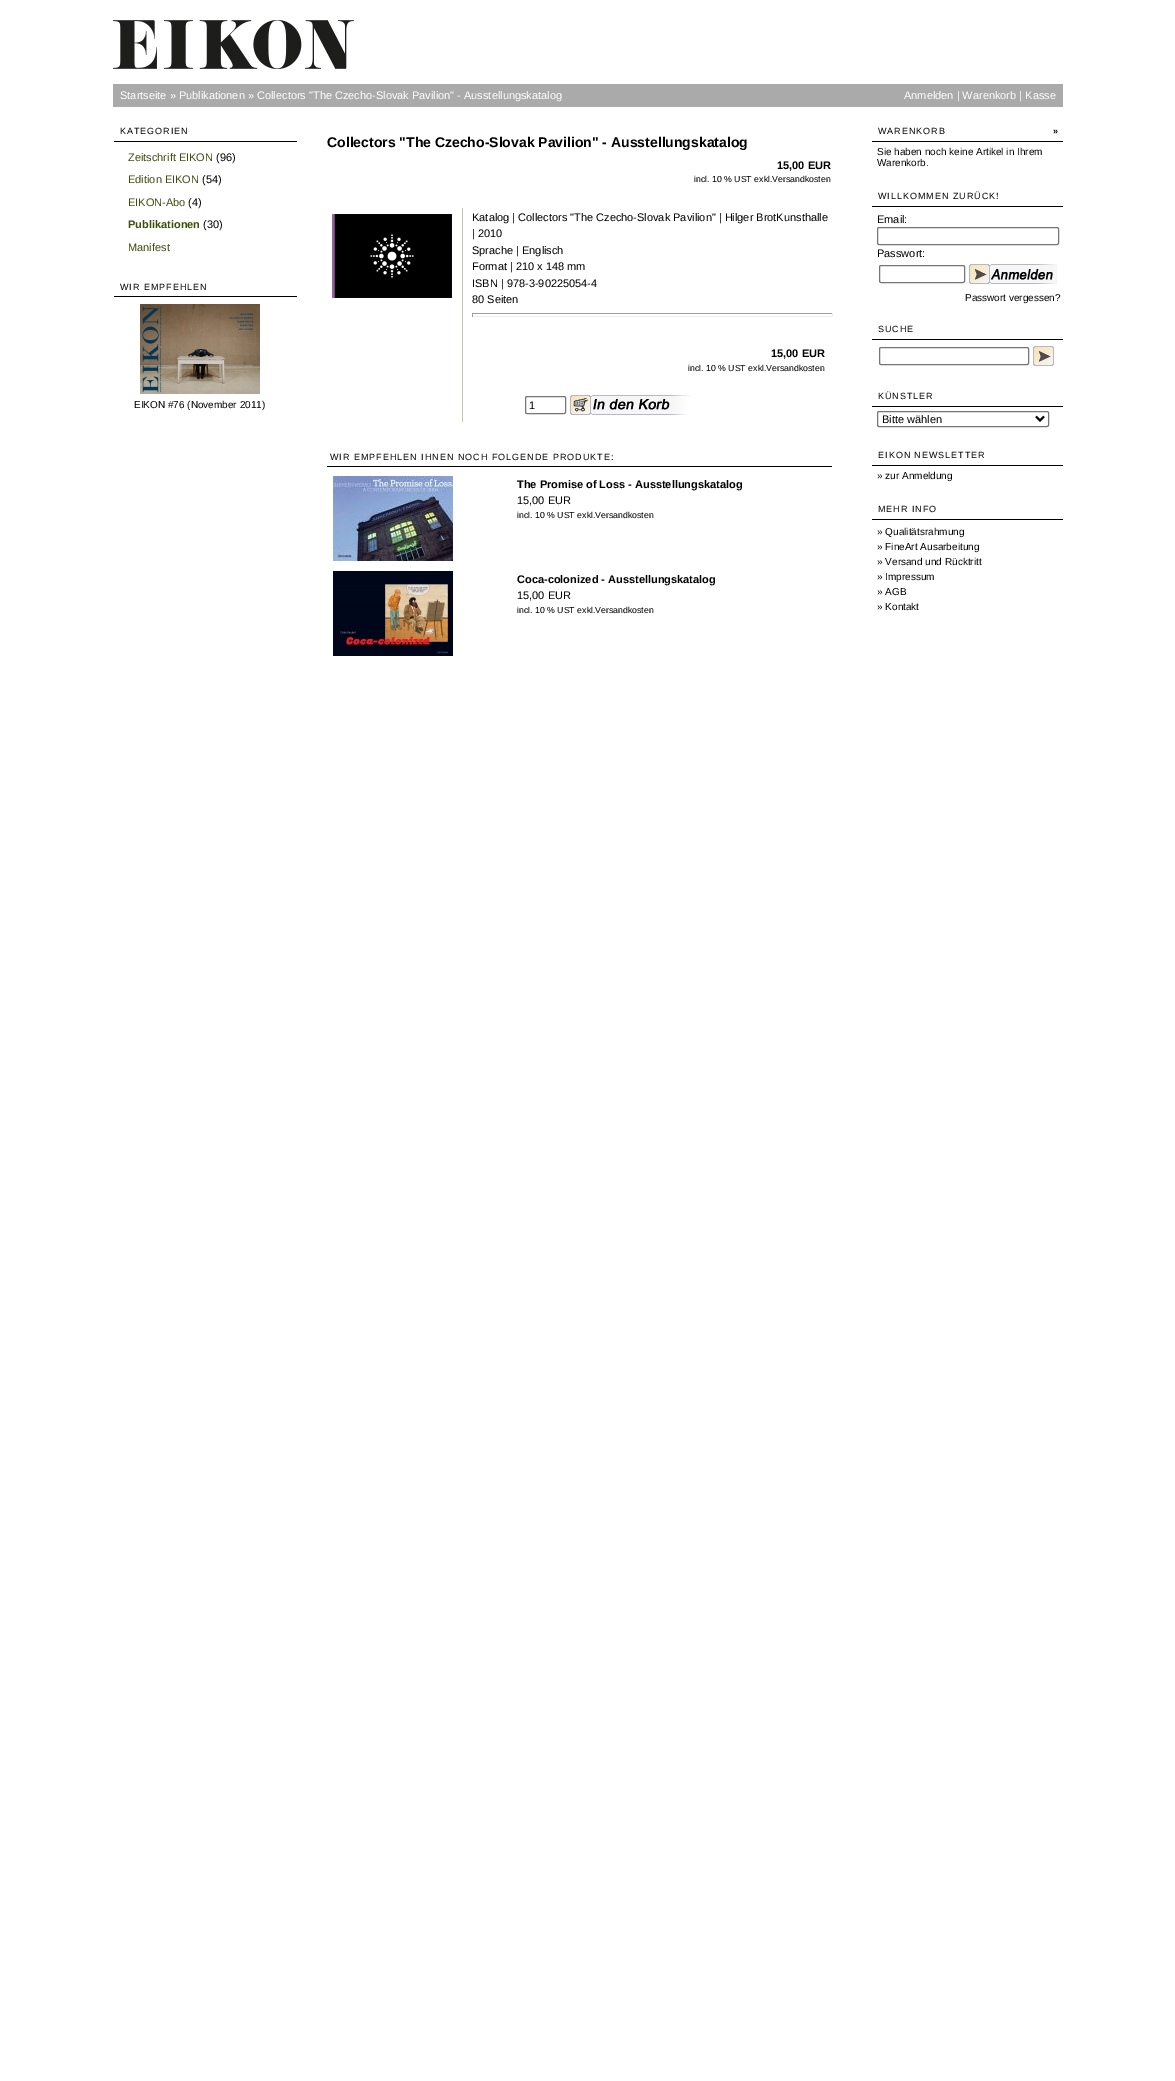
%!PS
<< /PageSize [1175 2081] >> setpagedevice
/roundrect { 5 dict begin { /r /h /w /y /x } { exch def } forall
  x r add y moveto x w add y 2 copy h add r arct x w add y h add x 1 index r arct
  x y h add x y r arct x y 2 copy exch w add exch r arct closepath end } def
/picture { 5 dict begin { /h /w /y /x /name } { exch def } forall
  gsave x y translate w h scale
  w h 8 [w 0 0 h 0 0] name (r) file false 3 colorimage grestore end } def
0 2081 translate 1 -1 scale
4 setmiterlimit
1 setgray
0 0 1175 2081 rectfill
(img1.rgb) 113 20 241 49 picture
0.667 setgray
113 84 950 23 rectfill
/LiberationSans-Regular [11 0 0 -11 0 0] selectfont
1 setgray
120 99 moveto (Startseite » Publikationen » Collectors "The Czecho-Slovak Pavilion" - Ausstellungskatalog) show
904 99 moveto (Anmelden | Warenkorb | Kasse) show
0 setgray
113 141 184 1 rectfill
1 setgray
113 141 1 1 rectfill
/LiberationSans-Regular [9 0 0 -9 0 0] selectfont
0 setgray
120 134 moveto 1 0 (KATEGORIEN) ashow
/LiberationSans-Regular [11 0 0 -11 0 0] selectfont
0.235 0.306 0.051 setrgbcolor
128 161 moveto (Zeitschrift EIKON) show
0 setgray
216 161 moveto (\(96\)) show
0.235 0.306 0.051 setrgbcolor
128 183 moveto (Edition EIKON) show
0 setgray
202 183 moveto (\(54\)) show
0.235 0.306 0.051 setrgbcolor
128 206 moveto (EIKON-Abo) show
0 setgray
188 206 moveto (\(4\)) show
/LiberationSans-Bold [11 0 0 -11 0 0] selectfont
0.235 0.306 0.051 setrgbcolor
128 228 moveto (Publikationen) show
/LiberationSans-Regular [11 0 0 -11 0 0] selectfont
0 setgray
203 228 moveto (\(30\)) show
0.235 0.306 0.051 setrgbcolor
128 251 moveto (Manifest) show
0 setgray
113 296 184 1 rectfill
1 setgray
113 296 1 1 rectfill
/LiberationSans-Regular [9 0 0 -9 0 0] selectfont
0 setgray
120 290 moveto 1 0 (WIR EMPFEHLEN) ashow
(img2.rgb) 140 304 120 90 picture
/LiberationSans-Regular [10 0 0 -10 0 0] selectfont
134 408 moveto (EIKON #76 \(November 2011\)) show
/LiberationSans-Bold [14 0 0 -14 0 0] selectfont
327 147 moveto (Collectors "The Czecho-Slovak Pavilion" - Ausstellungskatalog) show
/LiberationSans-Bold [11 0 0 -11 0 0] selectfont
777 169 moveto (15,00 EUR) show
/LiberationSans-Regular [8.75 0 0 -8.75 0 0] selectfont
694 182 moveto (incl. 10 % UST exkl.Versandkosten) show
0.765 0.796 0.604 setrgbcolor
462 208 1 214 rectfill
(img3.rgb) 332 214 120 84 picture
/LiberationSans-Regular [11 0 0 -11 0 0] selectfont
0 setgray
472 221 moveto (Katalog | Collectors "The Czecho-Slovak Pavilion" | Hilger BrotKunsthalle) show
472 237 moveto (| 2010) show
472 254 moveto (Sprache | Englisch) show
472 270 moveto (Format | 210 x 148 mm) show
472 287 moveto (ISBN | 978-3-90225054-4) show
472 303 moveto (80 Seiten) show
0.624 setgray
472 313 361 1 rectfill
0.933 setgray
832 313 1 4 rectfill
472 316 361 1 rectfill
0.624 setgray
472 313 1 4 rectfill
/LiberationSans-Bold [11 0 0 -11 0 0] selectfont
0 setgray
771 357 moveto (15,00 EUR) show
/LiberationSans-Regular [8.75 0 0 -8.75 0 0] selectfont
688 371 moveto (incl. 10 % UST exkl.Versandkosten) show
0.463 setgray
525.5 396.5 40 17 1.5 roundrect stroke
/LiberationSans-Regular [11 0 0 -11 0 0] selectfont
0 setgray
529 409 moveto (1) show
(img4.rgb) 570 395 120 20 picture
326 466 506 1 rectfill
1 setgray
326 466 1 1 rectfill
/LiberationSans-Regular [9 0 0 -9 0 0] selectfont
0 setgray
330 460 moveto 1 0 (WIR EMPFEHLEN IHNEN NOCH FOLGENDE PRODUKTE:) ashow
(img5.rgb) 333 476 120 85 picture
/LiberationSans-Bold [11 0 0 -11 0 0] selectfont
517 488 moveto (The Promise of Loss - Ausstellungskatalog) show
/LiberationSans-Regular [11 0 0 -11 0 0] selectfont
517 504 moveto (15,00 EUR) show
/LiberationSans-Regular [8.75 0 0 -8.75 0 0] selectfont
517 518 moveto (incl. 10 % UST exkl.Versandkosten) show
(img6.rgb) 333 571 120 85 picture
/LiberationSans-Bold [11 0 0 -11 0 0] selectfont
517 583 moveto (Coca-colonized - Ausstellungskatalog) show
/LiberationSans-Regular [11 0 0 -11 0 0] selectfont
517 599 moveto (15,00 EUR) show
/LiberationSans-Regular [8.75 0 0 -8.75 0 0] selectfont
517 613 moveto (incl. 10 % UST exkl.Versandkosten) show
872 141 191 1 rectfill
/LiberationSans-Regular [9 0 0 -9 0 0] selectfont
878 134 moveto 1 0 (WARENKORB) ashow
/LiberationSans-Bold [9 0 0 -9 0 0] selectfont
1053 134 moveto 1 0 (») ashow
/LiberationSans-Regular [10 0 0 -10 0 0] selectfont
877 155 moveto (Sie haben noch keine Artikel in Ihrem) show
877 166 moveto (Warenkorb.) show
872 206 191 1 rectfill
/LiberationSans-Regular [9 0 0 -9 0 0] selectfont
878 199 moveto 1 0 (WILLKOMMEN ZURÜCK!) ashow
/LiberationSans-Regular [11 0 0 -11 0 0] selectfont
877 223 moveto (Email:) show
0.463 setgray
877.5 227.5 181 17 1.5 roundrect stroke
0 setgray
877 257 moveto (Passwort:) show
0.463 setgray
879.5 265.5 85 17 1.5 roundrect stroke
(img7.rgb) 969 264 88 20 picture
/LiberationSans-Regular [10 0 0 -10 0 0] selectfont
0 setgray
965 301 moveto (Passwort vergessen?) show
872 339 191 1 rectfill
/LiberationSans-Regular [9 0 0 -9 0 0] selectfont
878 332 moveto 1 0 (SUCHE) ashow
0.463 setgray
879.5 347.5 149 17 1.5 roundrect stroke
(img8.rgb) 1033 346 21 20 picture
0 setgray
872 406 191 1 rectfill
878 399 moveto 1 0 (KÜNSTLER) ashow
0.463 setgray
877.5 411.5 171 15 1.5 roundrect stroke
0 setgray
2 setlinewidth
newpath 1036 416.5 moveto 1040 420.5 lineto 1044 416.5 lineto stroke
/LiberationSans-Regular [11 0 0 -11 0 0] selectfont
882 423 moveto (Bitte wählen) show
872 465 191 1 rectfill
/LiberationSans-Regular [9 0 0 -9 0 0] selectfont
878 458 moveto 1 0 (EIKON NEWSLETTER) ashow
/LiberationSans-Regular [10 0 0 -10 0 0] selectfont
877 479 moveto (» zur Anmeldung) show
872 519 191 1 rectfill
/LiberationSans-Regular [9 0 0 -9 0 0] selectfont
878 512 moveto 1 0 (MEHR INFO) ashow
/LiberationSans-Regular [10 0 0 -10 0 0] selectfont
877 535 moveto (» Qualitätsrahmung) show
877 550 moveto (» FineArt Ausarbeitung) show
877 565 moveto (» Versand und Rücktritt) show
877 580 moveto (» Impressum) show
877 595 moveto (» AGB) show
877 610 moveto (» Kontakt) show
showpage
